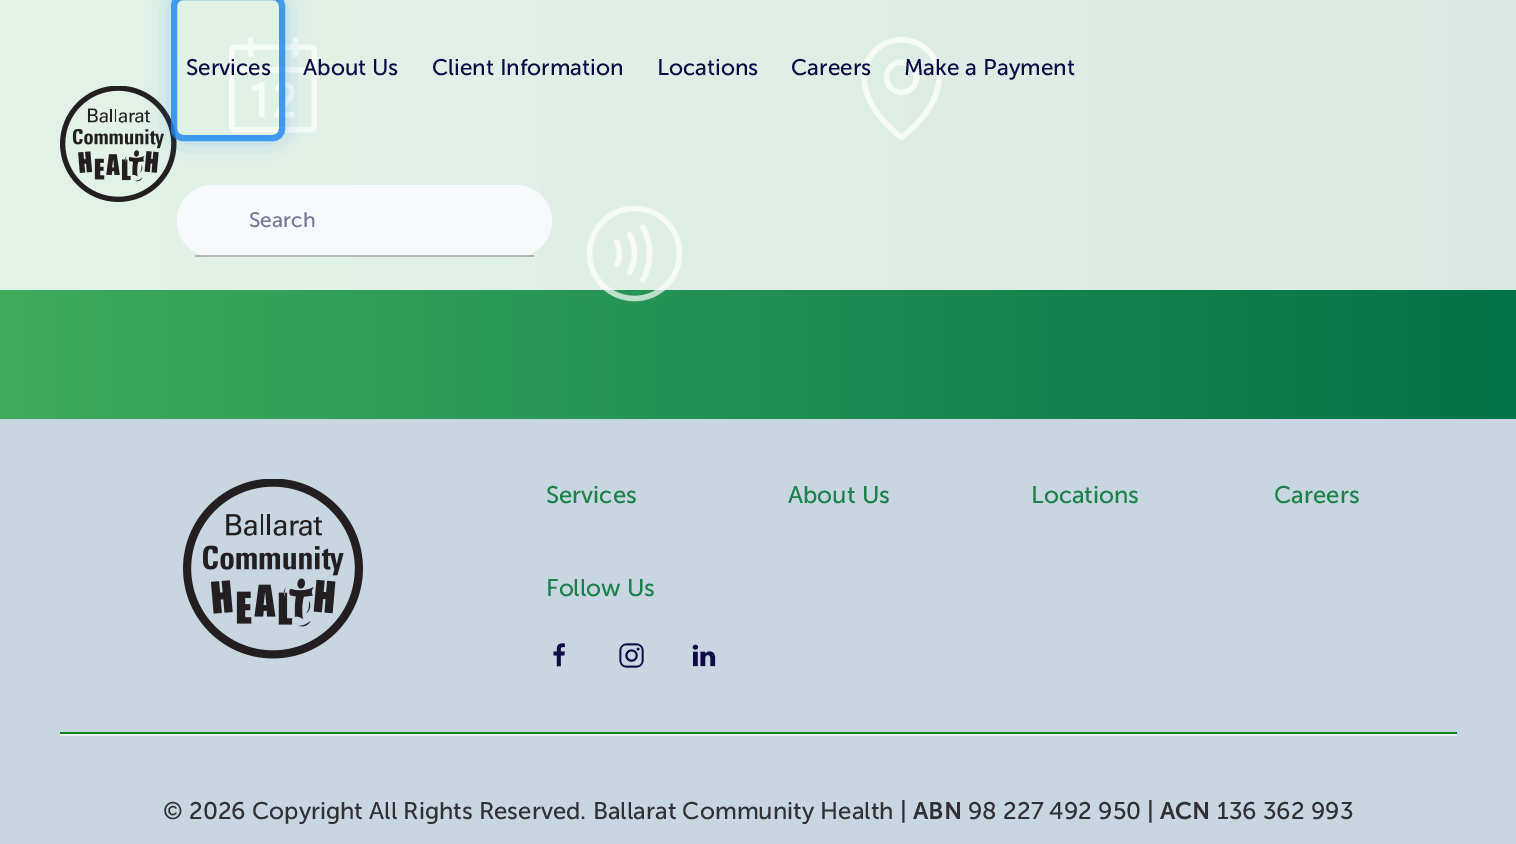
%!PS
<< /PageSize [1516 844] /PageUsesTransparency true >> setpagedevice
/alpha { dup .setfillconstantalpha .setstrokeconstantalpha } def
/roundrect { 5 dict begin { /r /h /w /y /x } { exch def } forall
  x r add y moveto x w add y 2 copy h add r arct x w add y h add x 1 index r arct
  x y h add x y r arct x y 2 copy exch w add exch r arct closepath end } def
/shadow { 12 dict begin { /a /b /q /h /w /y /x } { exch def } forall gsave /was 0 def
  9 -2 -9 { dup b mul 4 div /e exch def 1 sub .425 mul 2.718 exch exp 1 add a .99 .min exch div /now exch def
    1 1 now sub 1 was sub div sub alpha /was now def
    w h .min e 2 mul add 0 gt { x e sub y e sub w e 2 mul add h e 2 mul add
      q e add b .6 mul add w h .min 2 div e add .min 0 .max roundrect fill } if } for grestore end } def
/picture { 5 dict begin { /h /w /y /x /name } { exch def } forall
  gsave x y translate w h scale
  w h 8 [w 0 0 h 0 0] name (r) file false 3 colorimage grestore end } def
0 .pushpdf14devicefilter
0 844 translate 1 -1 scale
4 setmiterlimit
0.784 0.839 0.882 setrgbcolor
0 0 1516 844 rectfill
gsave newpath 0 0 moveto 1516 0 lineto 1516 419 lineto 0 419 lineto closepath clip newpath
<< /ShadingType 2 /ColorSpace /DeviceRGB /Coords [0 171 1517 171] /Extend [true true] /Function << /FunctionType 2 /Domain [0 1] /C0 [0.251 0.671 0.365] /C1 [0.004 0.451 0.282] /N 1 >> >> shfill grestore
(img2.rgb) 228 37 90 96 picture
(img3.rgb) 861 36 81 105 picture
(img4.rgb) 586 205 97 97 picture
0.85 alpha
1 setgray
0 0 1516 290 rectfill
1 alpha
(img1.rgb) 60 86 117 116 picture
gsave
newpath 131 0 moveto 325 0 lineto 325 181 lineto 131 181 lineto closepath 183 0 moveto 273 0 lineto 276.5 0 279 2.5 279 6 curveto 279 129 lineto 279 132.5 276.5 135 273 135 curveto 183 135 lineto 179.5 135 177 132.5 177 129 curveto 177 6 lineto 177 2.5 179.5 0 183 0 curveto closepath eoclip newpath
0.118 0.529 0.941 setrgbcolor
177 0 102 135 6 15 0.4 shadow
grestore
0.8 alpha
0.118 0.529 0.941 setrgbcolor
6 setlinewidth
174 -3 108 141 9 roundrect stroke
/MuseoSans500-Regular [22.5 0 0 -22.5 0 0] selectfont
1 alpha
0.051 0.039 0.275 setrgbcolor
186 75 moveto (Services) show
303 75 moveto (About Us) show
432 75 moveto (Client Information) show
657 75 moveto (Locations) show
791 75 moveto (Careers) show
904 75 moveto (Make a Payment) show
0.969 0.973 0.988 setrgbcolor
177 185 375 72 36 roundrect fill
0.24 alpha
0 setgray
195 255 339 2 rectfill
/MuseoSans500-Regular [21 0 0 -21 0 0] selectfont
1 alpha
0.455 0.478 0.588 setrgbcolor
249 227 moveto (Search) show
(img5.rgb) 183 479 180 180 picture
/MuseoSans500-Regular [24 0 0 -24 0 0] selectfont
0.106 0.506 0.282 setrgbcolor
546 503 moveto (Services) show
788 503 moveto (About Us) show
1031 503 moveto (Locations) show
1274 503 moveto (Careers) show
546 596 moveto (Follow Us) show
(img6.rgb) 553 643 12 24 picture
(img7.rgb) 619 643 25 25 picture
(img8.rgb) 692 644 24 23 picture
0.914 0.937 0.953 setrgbcolor
60 734 1397 2 rectfill
0.055 0.502 0.106 setrgbcolor
60 732 1397 2 rectfill
0.188 0.188 0.208 setrgbcolor
163 819 moveto (© 2026 Copyright All Rights Reserved. Ballarat Community Health |) show
/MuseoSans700-SemiBold [24 0 0 -24 0 0] selectfont
913 819 moveto (ABN) show
/MuseoSans500-Regular [24 0 0 -24 0 0] selectfont
968 819 moveto (98 227 492 950 |) show
/MuseoSans700-SemiBold [24 0 0 -24 0 0] selectfont
1160 819 moveto (ACN) show
/MuseoSans500-Regular [24 0 0 -24 0 0] selectfont
1217 819 moveto (136 362 993) show
.poppdf14devicefilter showpage
